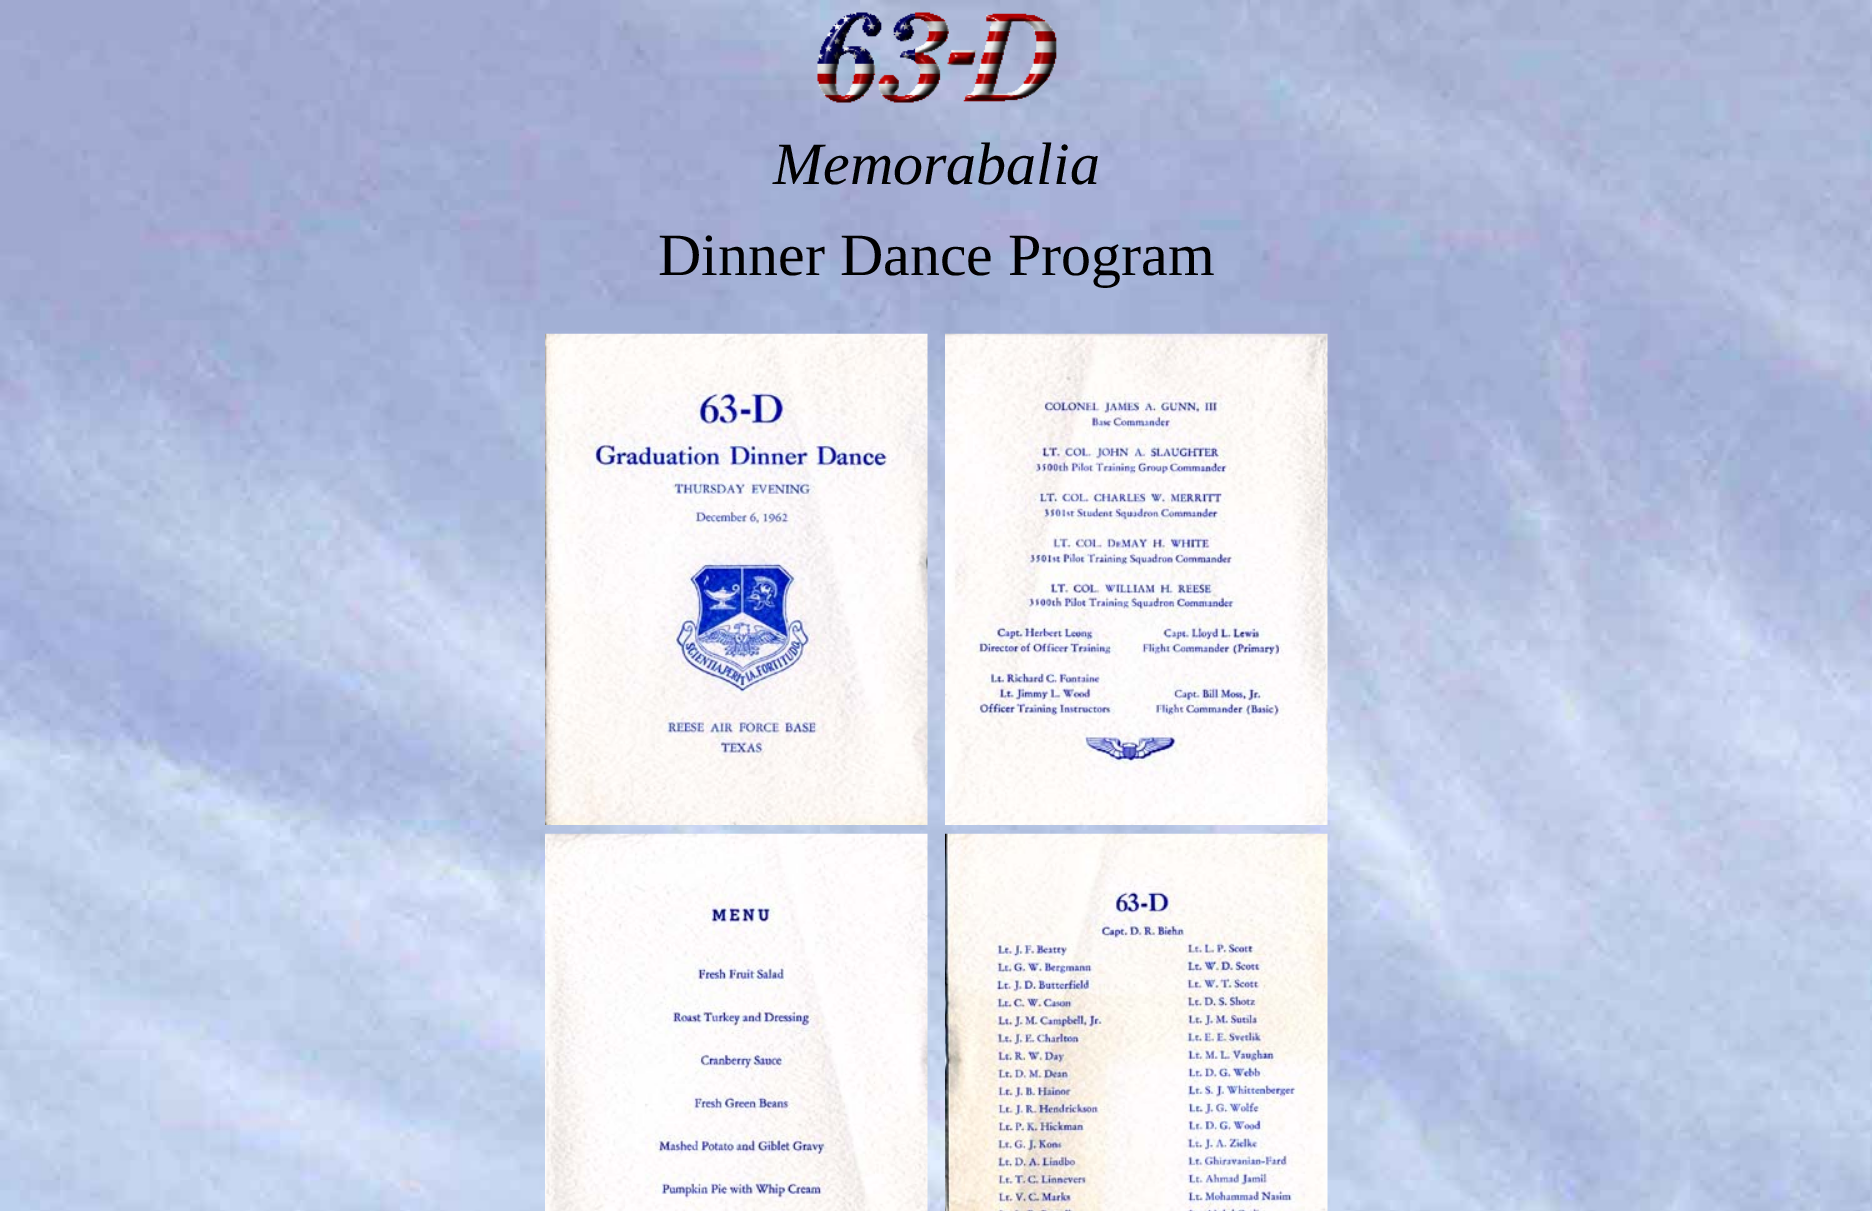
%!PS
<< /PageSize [1872 1211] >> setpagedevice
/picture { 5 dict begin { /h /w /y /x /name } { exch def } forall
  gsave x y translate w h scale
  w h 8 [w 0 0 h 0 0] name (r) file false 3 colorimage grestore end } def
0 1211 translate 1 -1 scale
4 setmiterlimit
1 setgray
0 0 1872 1211 rectfill
(img1.rgb) 0 0 1872 1211 picture
(img2.rgb) 817 12 240 91 picture
/LiberationSerif-Italic [60 0 0 -60 0 0] selectfont
0 setgray
773 184 moveto (Memorabalia) show
/LiberationSerif-Regular [60 0 0 -60 0 0] selectfont
658 275 moveto (Dinner Dance Program) show
(img3.rgb) 545 333 383 492 picture
(img4.rgb) 945 333 383 492 picture
(img5.rgb) 545 833 383 378 picture
(img6.rgb) 945 833 383 378 picture
showpage
